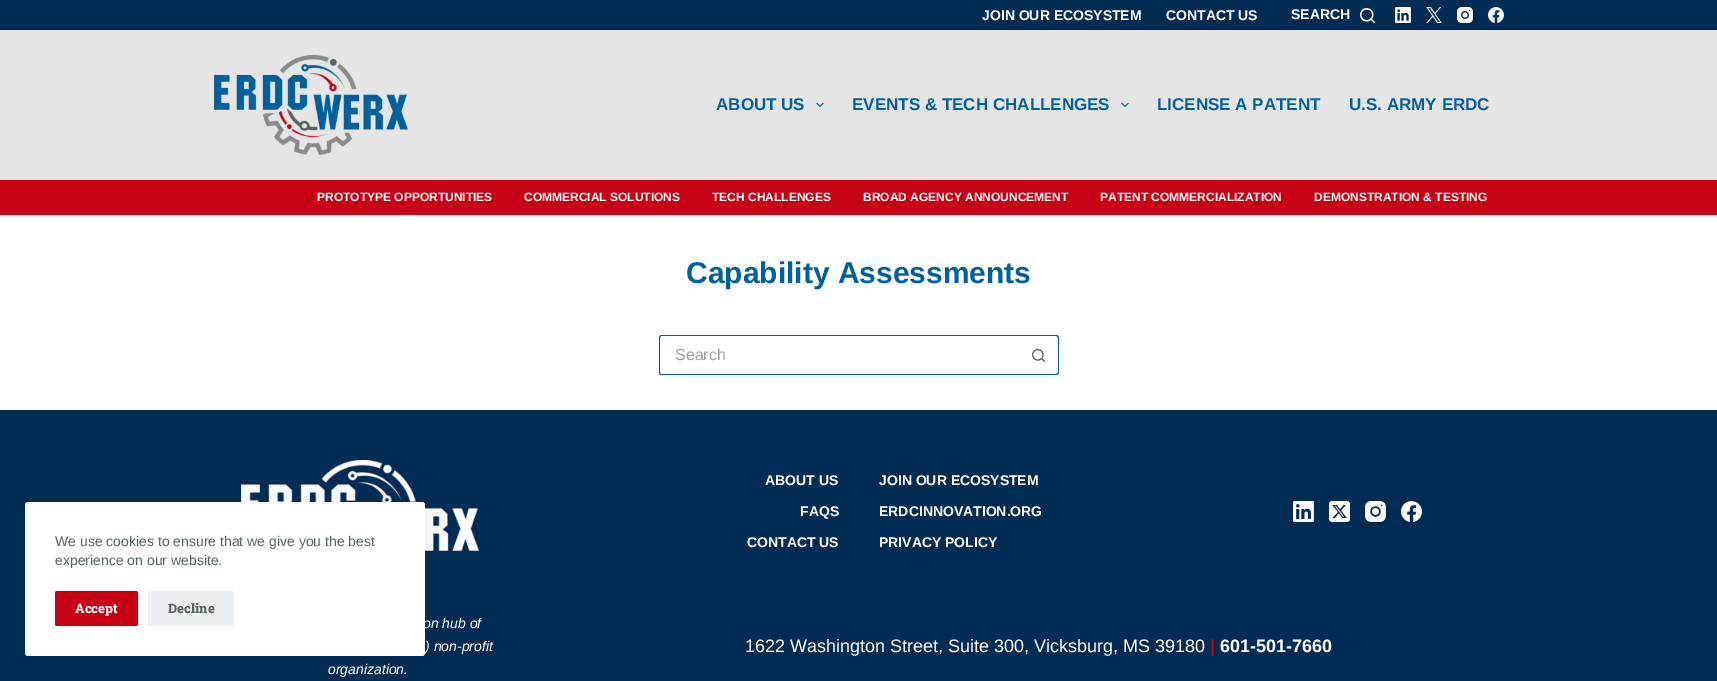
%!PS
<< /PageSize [1717 681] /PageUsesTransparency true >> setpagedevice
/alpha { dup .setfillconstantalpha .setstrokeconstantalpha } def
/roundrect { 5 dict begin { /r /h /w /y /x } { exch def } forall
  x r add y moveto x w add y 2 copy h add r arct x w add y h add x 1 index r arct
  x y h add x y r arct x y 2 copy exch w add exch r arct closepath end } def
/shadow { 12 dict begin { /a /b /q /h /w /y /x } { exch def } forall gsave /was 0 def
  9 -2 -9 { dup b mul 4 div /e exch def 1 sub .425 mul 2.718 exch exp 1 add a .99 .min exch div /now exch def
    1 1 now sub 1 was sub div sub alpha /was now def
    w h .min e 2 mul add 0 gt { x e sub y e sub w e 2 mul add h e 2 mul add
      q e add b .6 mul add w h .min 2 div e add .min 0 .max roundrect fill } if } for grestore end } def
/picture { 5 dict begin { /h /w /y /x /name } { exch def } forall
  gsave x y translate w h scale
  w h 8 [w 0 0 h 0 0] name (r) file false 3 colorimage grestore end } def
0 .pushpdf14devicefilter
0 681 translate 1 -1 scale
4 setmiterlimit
1 setgray
0 0 1717 681 rectfill
0 0.169 0.322 setrgbcolor
0 410 1717 271 rectfill
(img9.rgb) 241 460 238 91 picture
0.133 0.22 0.396 setrgbcolor
30 512 390 144 0 15 0.15 shadow
1 setgray
25 502 400 154 3 roundrect fill
/LiberationSans-Regular [14 0 0 -14 0 0] selectfont
0.337 0.384 0.38 setrgbcolor
55 546 moveto (We use cookies to ensure that we give you the best) show
55 565 moveto (experience on our website.) show
0.78 0 0.086 setrgbcolor
55 591 83 35 2 roundrect fill
/RobotoSlab-ExtraBold [13 0 0 -13 0 0] selectfont
1 setgray
75 613 moveto (Accept) show
0.925 0.937 0.953 setrgbcolor
148 591 86 35 2 roundrect fill
0.337 0.384 0.38 setrgbcolor
168 613 moveto (Decline) show
0 0.169 0.322 setrgbcolor
0 0 1717 30 rectfill
/LiberationSans-Bold [14 0 0 -14 0 0] selectfont
1 setgray
982 20 moveto (JOIN OUR ECOSYSTEM) show
1166 20 moveto (CONTACT US) show
1291 19 moveto (SEARCH) show
(img1.rgb) 1360 8 15 15 picture
(img2.rgb) 1395 7 16 16 picture
(img3.rgb) 1426 7 16 16 picture
(img4.rgb) 1457 7 16 16 picture
(img5.rgb) 1488 7 16 16 picture
0.898 setgray
0 30 1717 150 rectfill
(img6.rgb) 214 55 194 100 picture
/LiberationSans-Bold [17 0 0 -17 0 0] selectfont
0 0.376 0.612 setrgbcolor
716 110 moveto (ABOUT US) show
(img7.rgb) 816 102 8 6 picture
852 110 moveto (EVENTS & TECH CHALLENGES) show
(img7.rgb) 1121 102 8 6 picture
1157 110 moveto (LICENSE A PATENT) show
1349 110 moveto (U.S. ARMY ERDC) show
0.78 0 0.086 setrgbcolor
0 180 1717 35 rectfill
/LiberationSans-Bold [12 0 0 -12 0 0] selectfont
1 setgray
317 201 moveto (PROTOTYPE OPPORTUNITIES) show
524 201 moveto (COMMERCIAL SOLUTIONS) show
712 201 moveto (TECH CHALLENGES) show
863 201 moveto (BROAD AGENCY ANNOUNCEMENT) show
1100 201 moveto (PATENT COMMERCIALIZATION) show
1314 201 moveto (DEMONSTRATION & TESTING) show
/LiberationSans-Bold [30 0 0 -30 0 0] selectfont
0 0.376 0.612 setrgbcolor
686 283 moveto (Capability Assessments) show
newpath 662 335 moveto 1019 335 lineto 1019 375 lineto 662 375 lineto 660 375 659 374 659 372 curveto 659 338 lineto 659 336 660 335 662 335 curveto closepath 662 336 moveto 1019 336 lineto 1019 374 lineto 661 374 lineto 659 372 660 367 660 366 curveto 660 338 lineto 661 336 lineto closepath eofill
/LiberationSans-Regular [16 0 0 -16 0 0] selectfont
0.604 0.631 0.627 setrgbcolor
675 360 moveto (Search) show
0 0.376 0.612 setrgbcolor
newpath 1019 335 moveto 1056 335 lineto 1058 335 1059 336 1059 338 curveto 1059 372 lineto 1059 374 1058 375 1056 375 curveto 1019 375 lineto closepath 1019 336 moveto 1056 336 lineto 1057 336 1058 337 1058 338 curveto 1058 372 lineto 1058 373 1057 374 1056 374 curveto 1019 374 lineto closepath eofill
(img8.rgb) 1032 349 13 13 picture
/LiberationSans-Bold [14 0 0 -14 0 0] selectfont
1 setgray
765 485 moveto (ABOUT US) show
800 516 moveto (FAQS) show
747 547 moveto (CONTACT US) show
879 485 moveto (JOIN OUR ECOSYSTEM) show
879 516 moveto (ERDCINNOVATION.ORG) show
879 547 moveto (PRIVACY POLICY) show
(img10.rgb) 1293 501 21 21 picture
(img11.rgb) 1329 501 21 21 picture
(img12.rgb) 1365 501 21 21 picture
(img13.rgb) 1401 501 21 21 picture
/LiberationSans-Italic [14 0 0 -14 0 0] selectfont
423 628 moveto (on hub of) show
425 651 moveto (\) non-profit) show
328 674 moveto (organization.) show
/LiberationSans-Regular [18 0 0 -18 0 0] selectfont
745 652 moveto (1622 Washington Street, Suite 300, Vicksburg, MS 39180) show
/LiberationSans-Bold [18 0 0 -18 0 0] selectfont
0.78 0 0.086 setrgbcolor
1210 652 moveto (|) show
1 setgray
1220 652 moveto (601-501-7660) show
.poppdf14devicefilter showpage
